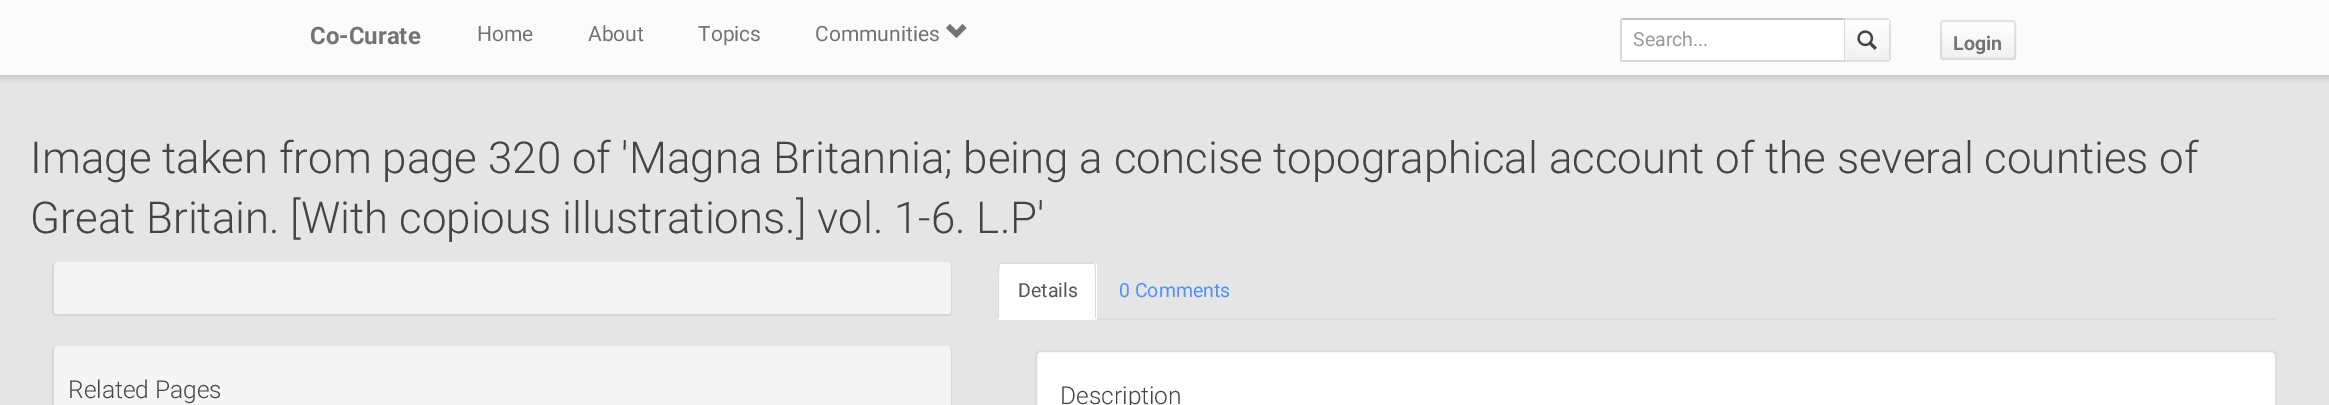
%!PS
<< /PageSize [2329 405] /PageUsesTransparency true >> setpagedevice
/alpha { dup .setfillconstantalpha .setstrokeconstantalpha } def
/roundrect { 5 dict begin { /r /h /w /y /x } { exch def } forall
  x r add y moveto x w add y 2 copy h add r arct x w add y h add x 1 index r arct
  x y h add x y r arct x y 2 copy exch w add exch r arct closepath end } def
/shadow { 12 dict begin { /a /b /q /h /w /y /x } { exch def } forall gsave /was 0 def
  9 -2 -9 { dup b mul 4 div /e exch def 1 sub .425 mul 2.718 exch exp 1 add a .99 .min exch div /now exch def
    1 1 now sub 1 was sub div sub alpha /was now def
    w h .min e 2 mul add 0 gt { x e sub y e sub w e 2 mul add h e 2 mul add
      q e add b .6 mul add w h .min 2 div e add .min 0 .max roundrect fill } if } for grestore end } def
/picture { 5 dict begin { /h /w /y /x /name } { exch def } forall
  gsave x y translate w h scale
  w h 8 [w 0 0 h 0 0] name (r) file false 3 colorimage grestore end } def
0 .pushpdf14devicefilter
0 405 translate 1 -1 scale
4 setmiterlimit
0.898 setgray
0 0 2329 405 rectfill
0 setgray
0 3 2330 75 0 3 0.15 shadow
0.984 setgray
0 0 2329 75 rectfill
/Roboto-Bold [24 0 0 -24 0 0] selectfont
0.451 setgray
310 44 moveto (Co-Curate) show
/Roboto-Regular [21 0 0 -21 0 0] selectfont
477 41 moveto (Home) show
588 41 moveto (About) show
698 41 moveto (Topics) show
815 41 moveto (Communities) show
newpath 946 28 moveto 956.5 38 lineto 966.5 28 lineto 962.5 24 lineto 956.5 30.5 lineto 950 24 lineto closepath fill
1 setgray
newpath 1621.5 18 moveto 1845 18 lineto 1845 62 lineto 1621.5 62 lineto 1620.5 62 1620 61.5 1620 60.5 curveto 1620 19.5 lineto 1620 18.5 1620.5 18 1621.5 18 curveto closepath fill
0.753 setgray
newpath 1622 18 moveto 1621 19 lineto 1622 20 lineto 1843 20 lineto 1845 18 lineto closepath fill
0.851 setgray
newpath 1845 18 moveto 1843 20 lineto 1844 20 lineto 1844 60 lineto 1845 62 lineto closepath fill
newpath 1845 62 moveto 1621 62 lineto 1620 61 lineto 1622 60 lineto 1844 60 lineto closepath fill
newpath 1622 20 moveto 1621 19 lineto 1620 20 lineto 1620 23 1620 60 1620 61 curveto 1622 60 lineto closepath fill
/Roboto-Regular [19.5 0 0 -19.5 0 0] selectfont
0.6 setgray
1633 46 moveto (Search...) show
gsave newpath 1845 20 moveto 1890 20 lineto 1890 60 lineto 1845 60 lineto closepath clip newpath
<< /ShadingType 2 /ColorSpace /DeviceRGB /Coords [1867 19 1867 60] /Extend [true true] /Function << /FunctionType 2 /Domain [0 1] /C0 [1 1 1] /C1 [0.945 0.945 0.945] /N 1 >> >> shfill grestore
0.878 setgray
1845 18 44 2 rectfill
0.1 alpha
0 setgray
1889 20 2 40 rectfill
1 alpha
0.878 setgray
1845 60 44 2 rectfill
(img1.rgb) 1857 30 20 20 picture
gsave
1940 20 76 40 3 roundrect clip newpath
gsave newpath 1940 21 moveto 2016 21 lineto 2016 59 lineto 1940 59 lineto closepath clip newpath
<< /ShadingType 2 /ColorSpace /DeviceRGB /Coords [1978 21 1978 59] /Extend [true true] /Function << /FunctionType 2 /Domain [0 1] /C0 [1 1 1] /C1 [0.945 0.945 0.945] /N 1 >> >> shfill grestore
grestore
0.1 alpha
0 setgray
2 setlinewidth
1941 21 74 38 2 roundrect stroke
/Roboto-Bold [19.5 0 0 -19.5 0 0] selectfont
1 alpha
0.451 setgray
1953 50 moveto (Login) show
/Roboto-Light [43.9 0 0 -43.9 0 0] selectfont
0.267 setgray
30 173 moveto (Image taken from page 320 of 'Magna Britannia; being a concise topographical account of the several counties of) show
30 233 moveto (Great Britain. [With copious illustrations.] vol. 1-6. L.P') show
0.961 setgray
newpath 57 262 moveto 948 262 lineto 950 262 951 265 951 267 curveto 951 312 lineto 951 313 950 314 948 314 curveto 57 314 lineto 55 314 54 313 54 312 curveto 54 267 lineto 54 265 55 262 57 262 curveto closepath fill
0.847 setgray
newpath 57 262 moveto 948 262 lineto 950 262 952 265 952 267 curveto 952 312 lineto 952 314 950 316 948 316 curveto 57 316 lineto 55 316 52 314 52 312 curveto 52 267 lineto 52 265 55 262 57 262 curveto closepath 57 262 moveto 948 262 lineto 950 262 951 265 951 267 curveto 951 312 lineto 951 313 950 314 948 314 curveto 57 314 lineto 55 314 54 313 54 312 curveto 54 267 lineto 54 265 55 262 57 262 curveto closepath eofill
0.961 setgray
newpath 57 346 moveto 948 346 lineto 950 346 951 349 951 351 curveto 951 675 lineto 951 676 950 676 948 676 curveto 57 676 lineto 55 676 54 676 54 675 curveto 54 351 lineto 54 349 55 346 57 346 curveto closepath fill
0.847 setgray
newpath 57 346 moveto 948 346 lineto 950 346 952 349 952 351 curveto 952 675 lineto 952 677 950 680 948 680 curveto 57 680 lineto 55 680 52 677 52 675 curveto 52 351 lineto 52 349 55 346 57 346 curveto closepath 57 346 moveto 948 346 lineto 950 346 951 349 951 351 curveto 951 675 lineto 951 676 950 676 948 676 curveto 57 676 lineto 55 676 54 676 54 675 curveto 54 351 lineto 54 349 55 346 57 346 curveto closepath eofill
/Roboto-Light [24.5 0 0 -24.5 0 0] selectfont
0.267 setgray
68 398 moveto (Related Pages) show
0.867 setgray
1097 318 1180 2 rectfill
1 setgray
newpath 1001 263 moveto 1094 263 lineto 1095.5 263 1097 264.5 1097 266 curveto 1097 320 lineto 998 320 lineto 998 266 lineto 998 264.5 999.5 263 1001 263 curveto closepath fill
0.867 setgray
newpath 1000 264 moveto 1000 265 lineto 999 264 lineto 999 262 lineto 1095 262 lineto 1095 264 lineto 1094 265 lineto 1094 264 lineto closepath fill
newpath 1095 264 moveto 1096 266 lineto 1096 319 lineto 1095 318 lineto 1095 312 1096 267 1094 265 curveto closepath fill
newpath 998 319 moveto 998 266 lineto 999 264 lineto 1000 265 lineto 998 267 999 312 999 318 curveto closepath fill
/Roboto-Regular [19.5 0 0 -19.5 0 0] selectfont
0.333 setgray
1018 297 moveto (Details) show
0.302 0.565 0.996 setrgbcolor
1119 297 moveto (0 Comments) show
1 setgray
newpath 1041 351 moveto 2271 351 lineto 2274 351 2276 353 2276 356 curveto 2276 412 lineto 1036 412 lineto 1036 356 lineto 1036 353 1038 351 1041 351 curveto closepath gsave fill grestore
0.867 setgray
stroke
/Roboto-Light [24.5 0 0 -24.5 0 0] selectfont
0.267 setgray
1060 404 moveto (Description) show
.poppdf14devicefilter showpage
